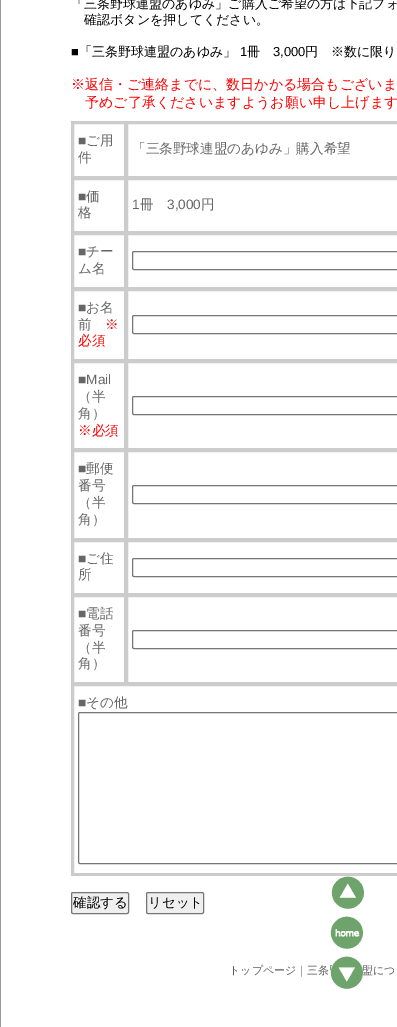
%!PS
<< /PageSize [397 1027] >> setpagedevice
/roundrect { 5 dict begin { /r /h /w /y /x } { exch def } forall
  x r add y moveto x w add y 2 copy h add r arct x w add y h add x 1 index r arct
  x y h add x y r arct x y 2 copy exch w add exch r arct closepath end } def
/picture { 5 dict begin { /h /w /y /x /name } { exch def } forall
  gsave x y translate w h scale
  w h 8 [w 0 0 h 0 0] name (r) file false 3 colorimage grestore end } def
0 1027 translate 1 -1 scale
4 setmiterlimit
1 setgray
0 0 397 1027 rectfill
0.6 setgray
newpath 3 -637 moveto 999 -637 lineto 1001 -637 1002 -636 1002 -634 curveto 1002 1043 lineto 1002 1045 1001 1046 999 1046 curveto 3 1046 lineto 1 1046 0 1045 0 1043 curveto 0 -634 lineto 0 -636 1 -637 3 -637 curveto closepath 3 -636 moveto 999 -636 lineto 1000 -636 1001 -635 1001 -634 curveto 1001 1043 lineto 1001 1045 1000 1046 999 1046 curveto 3 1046 lineto 2 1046 1 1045 1 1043 curveto 1 -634 lineto 1 -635 2 -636 3 -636 curveto closepath eofill
/WenQuanYiZenHei-Medium [13 0 0 -13 0 0] selectfont
0 setgray
71 8 moveto (「三条野球連盟のあゆみ」ご購入ご希望の方は下記フォ) show
84 24 moveto (確認ボタンを押してください。) show
/LiberationSans-Regular [13 0 0 -13 0 0] selectfont
71 56 moveto (■) show
/WenQuanYiZenHei-Medium [13 0 0 -13 0 0] selectfont
79 56 moveto (「三条野球連盟のあゆみ」) show
/LiberationSans-Regular [13 0 0 -13 0 0] selectfont
240 56 moveto (1) show
/WenQuanYiZenHei-Medium [13 0 0 -13 0 0] selectfont
247 56 moveto (冊) show
/LiberationSans-Regular [13 0 0 -13 0 0] selectfont
273 56 moveto (3,000) show
/WenQuanYiZenHei-Medium [13 0 0 -13 0 0] selectfont
305 56 moveto (円　※数に限り) show
/WenQuanYiZenHei-Medium [14 0 0 -14 0 0] selectfont
1 0 0 setrgbcolor
71 89 moveto (※返信・ご連絡までに、数日かかる場合もございま) show
85 107 moveto (予めご了承くださいますようお願い申し上げます) show
0.8 setgray
2 setlinewidth
73 123 52 54 rectstroke
127 123 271 54 rectstroke
125 121 272 1 rectfill
71 121 56 2 rectfill
71 683 1 2 rectfill
73 685 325 189 rectstroke
71 874 326 2 rectfill
71 683 1 193 rectfill
71 594 1 91 rectfill
71 539 1 57 rectfill
71 449 1 92 rectfill
71 360 1 91 rectfill
71 288 1 74 rectfill
71 232 1 58 rectfill
71 177 1 57 rectfill
71 121 1 58 rectfill
/LiberationSans-Regular [13.6 0 0 -13.6 0 0] selectfont
0.4 setgray
78 145 moveto (■) show
/WenQuanYiZenHei-Medium [13.6 0 0 -13.6 0 0] selectfont
86 145 moveto (ご用) show
78 162 moveto (件) show
132 153 moveto (「三条野球連盟のあゆみ」購入希望) show
0.8 setgray
73 179 52 53 rectstroke
/LiberationSans-Regular [13.6 0 0 -13.6 0 0] selectfont
0.4 setgray
78 201 moveto (■) show
/WenQuanYiZenHei-Medium [13.6 0 0 -13.6 0 0] selectfont
86 201 moveto (価) show
78 217 moveto (格) show
0.8 setgray
127 179 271 53 rectstroke
/LiberationSans-Regular [13.6 0 0 -13.6 0 0] selectfont
0.4 setgray
132 209 moveto (1) show
/WenQuanYiZenHei-Medium [13.6 0 0 -13.6 0 0] selectfont
140 209 moveto (冊) show
/LiberationSans-Regular [13.6 0 0 -13.6 0 0] selectfont
167 209 moveto (3,000) show
/WenQuanYiZenHei-Medium [13.6 0 0 -13.6 0 0] selectfont
201 209 moveto (円) show
0.8 setgray
73 234 52 54 rectstroke
/LiberationSans-Regular [13.6 0 0 -13.6 0 0] selectfont
0.4 setgray
78 256 moveto (■) show
/WenQuanYiZenHei-Medium [13.6 0 0 -13.6 0 0] selectfont
86 256 moveto (チー) show
78 273 moveto (ム名) show
0.8 setgray
127 234 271 54 rectstroke
0.463 setgray
1 setlinewidth
132.5 251.5 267 18 1.5 roundrect stroke
0.8 setgray
2 setlinewidth
73 290 52 70 rectstroke
/LiberationSans-Regular [13.6 0 0 -13.6 0 0] selectfont
0.4 setgray
78 312 moveto (■) show
/WenQuanYiZenHei-Medium [13.6 0 0 -13.6 0 0] selectfont
86 312 moveto (お名) show
78 329 moveto (前) show
1 0 0 setrgbcolor
105 329 moveto (※) show
78 345 moveto (必須) show
0.8 setgray
127 290 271 70 rectstroke
0.463 setgray
1 setlinewidth
132.5 315.5 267 18 1.5 roundrect stroke
0.8 setgray
2 setlinewidth
73 362 52 87 rectstroke
/LiberationSans-Regular [13.6 0 0 -13.6 0 0] selectfont
0.4 setgray
78 384 moveto (■Mail) show
/WenQuanYiZenHei-Medium [13.6 0 0 -13.6 0 0] selectfont
78 401 moveto (（半) show
78 418 moveto (角）) show
1 0 0 setrgbcolor
78 435 moveto (※必須) show
0.8 setgray
127 362 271 87 rectstroke
0.463 setgray
1 setlinewidth
132.5 396.5 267 18 1.5 roundrect stroke
0.8 setgray
2 setlinewidth
73 451 52 88 rectstroke
/LiberationSans-Regular [13.6 0 0 -13.6 0 0] selectfont
0.4 setgray
78 473 moveto (■) show
/WenQuanYiZenHei-Medium [13.6 0 0 -13.6 0 0] selectfont
86 473 moveto (郵便) show
78 490 moveto (番号) show
78 507 moveto (（半) show
78 524 moveto (角）) show
0.8 setgray
127 451 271 88 rectstroke
0.463 setgray
1 setlinewidth
132.5 485.5 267 18 1.5 roundrect stroke
0.8 setgray
2 setlinewidth
73 541 52 53 rectstroke
/LiberationSans-Regular [13.6 0 0 -13.6 0 0] selectfont
0.4 setgray
78 563 moveto (■) show
/WenQuanYiZenHei-Medium [13.6 0 0 -13.6 0 0] selectfont
86 563 moveto (ご住) show
78 579 moveto (所) show
0.8 setgray
127 541 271 53 rectstroke
0.463 setgray
1 setlinewidth
132.5 558.5 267 18 1.5 roundrect stroke
0.8 setgray
2 setlinewidth
73 596 52 87 rectstroke
/LiberationSans-Regular [13.6 0 0 -13.6 0 0] selectfont
0.4 setgray
78 618 moveto (■) show
/WenQuanYiZenHei-Medium [13.6 0 0 -13.6 0 0] selectfont
86 618 moveto (電話) show
78 635 moveto (番号) show
78 652 moveto (（半) show
78 668 moveto (角）) show
0.8 setgray
127 596 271 87 rectstroke
0.463 setgray
1 setlinewidth
132.5 630.5 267 18 1.5 roundrect stroke
/LiberationSans-Regular [13.6 0 0 -13.6 0 0] selectfont
0.4 setgray
78 707 moveto (■) show
/WenQuanYiZenHei-Medium [13.6 0 0 -13.6 0 0] selectfont
86 707 moveto (その他) show
0.463 setgray
78.5 712.5 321 151 1.5 roundrect stroke
0.937 setgray
71.5 892.5 57 21 1.5 roundrect gsave fill grestore
0.463 setgray
stroke
/WenQuanYiZenHei-Medium [13.5 0 0 -13.5 0 0] selectfont
0 setgray
73 907 moveto (確認する) show
0.937 setgray
146.5 892.5 57 21 1.5 roundrect gsave fill grestore
0.463 setgray
stroke
0 setgray
148 907 moveto (リセット) show
(img1.rgb) 331 876 33 33 picture
(img2.rgb) 330 916 33 33 picture
/WenQuanYiZenHei-Medium [11 0 0 -11 0 0] selectfont
0.369 0.365 0.361 setrgbcolor
362 974 moveto (盟につ) show
(img3.rgb) 330 956 33 33 picture
229 974 moveto (トップページ｜三条) show
showpage
